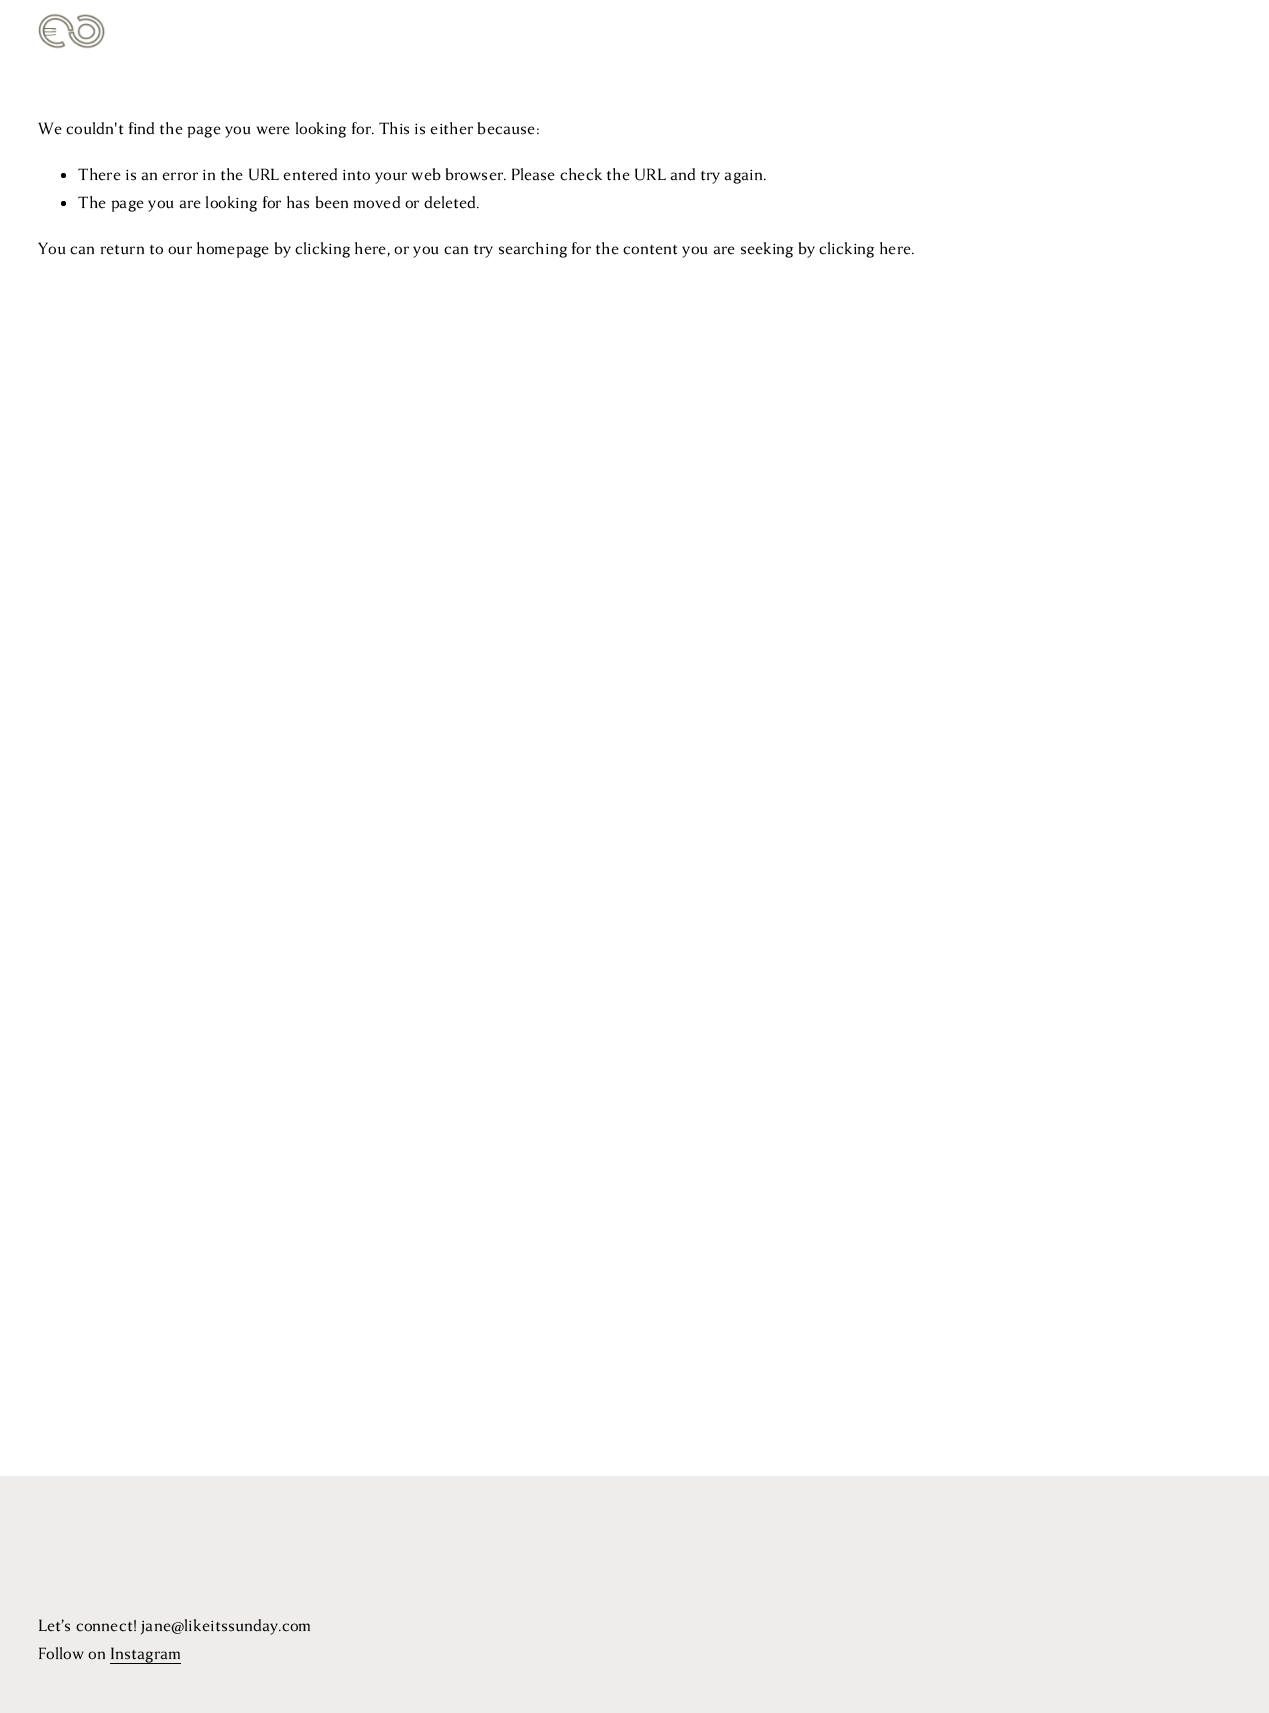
%!PS
<< /PageSize [1269 1713] >> setpagedevice
/picture { 5 dict begin { /h /w /y /x /name } { exch def } forall
  gsave x y translate w h scale
  w h 8 [w 0 0 h 0 0] name (r) file false 3 colorimage grestore end } def
0 1713 translate 1 -1 scale
4 setmiterlimit
1 setgray
0 0 1269 1713 rectfill
(img1.rgb) 38 13 67 36 picture
/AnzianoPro-Regular [17.52 0 0 -17.52 0 0] selectfont
0 setgray
38 134 moveto (We couldn't find the page you were looking for. This is either because:) show
newpath 63.5 175.5 2.5 0 360 arc closepath fill
78 180 moveto (There is an error in the URL entered into your web browser. Please check the URL and try again.) show
newpath 63.5 203.5 2.5 0 360 arc closepath fill
78 208 moveto (The page you are looking for has been moved or deleted.) show
38 254 moveto (You can return to our homepage by clicking here, or you can try searching for the content you are seeking by clicking here.) show
0.933 0.929 0.922 setrgbcolor
0 1476 1269 237 rectfill
0 setgray
38 1631 moveto (Let’s connect! jane@likeitssunday.com) show
38 1659 moveto (Follow on Instagram) show
110 1663 71 1 rectfill
showpage
